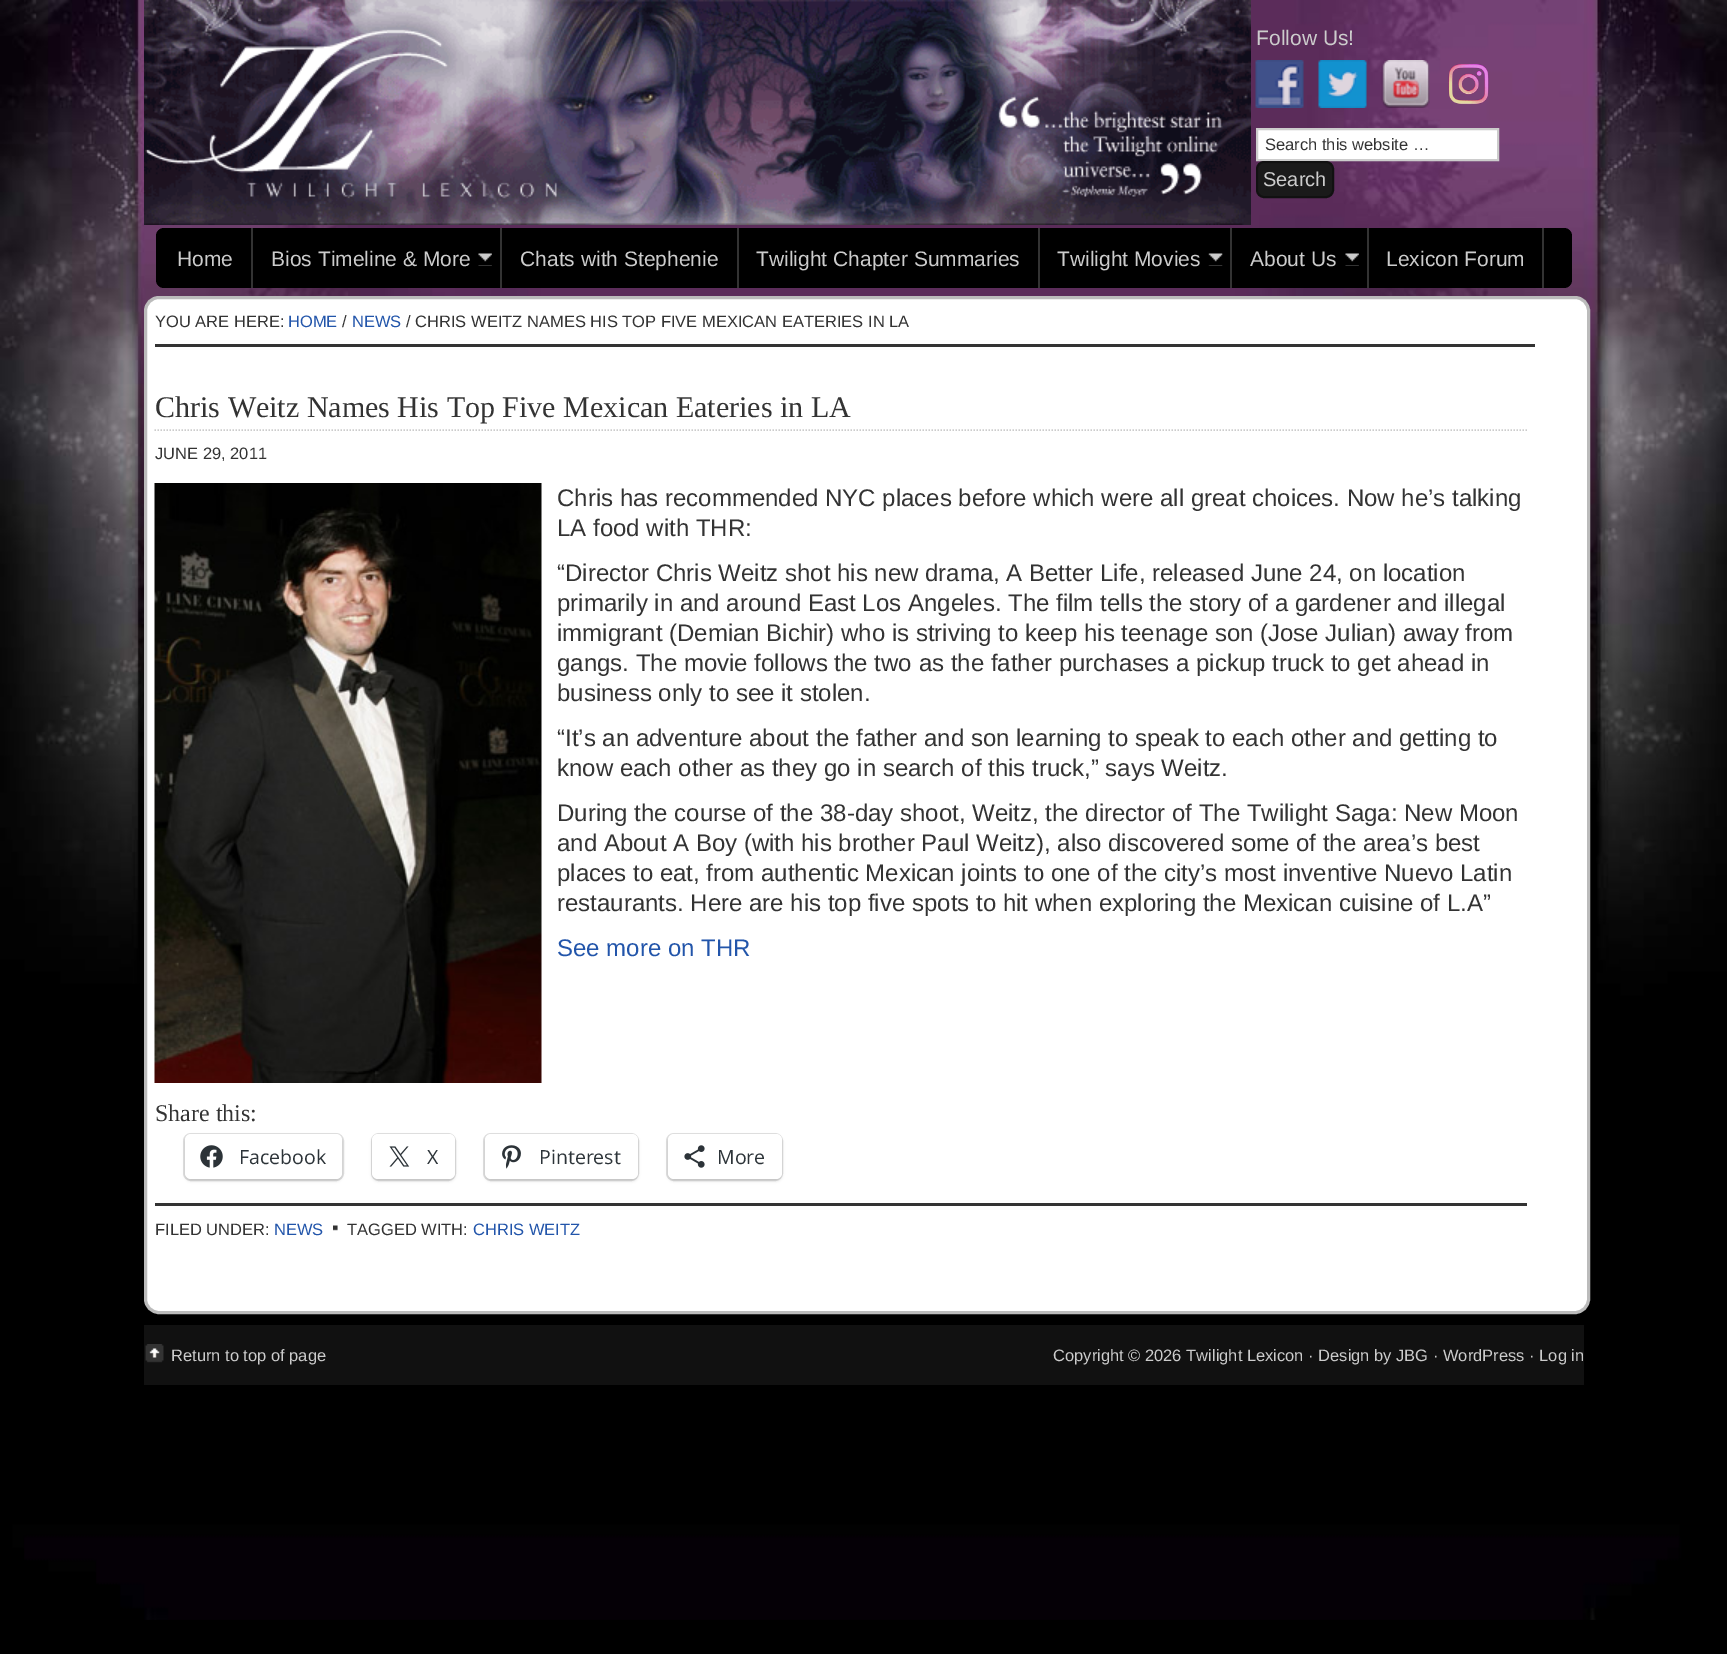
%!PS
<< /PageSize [1727 1654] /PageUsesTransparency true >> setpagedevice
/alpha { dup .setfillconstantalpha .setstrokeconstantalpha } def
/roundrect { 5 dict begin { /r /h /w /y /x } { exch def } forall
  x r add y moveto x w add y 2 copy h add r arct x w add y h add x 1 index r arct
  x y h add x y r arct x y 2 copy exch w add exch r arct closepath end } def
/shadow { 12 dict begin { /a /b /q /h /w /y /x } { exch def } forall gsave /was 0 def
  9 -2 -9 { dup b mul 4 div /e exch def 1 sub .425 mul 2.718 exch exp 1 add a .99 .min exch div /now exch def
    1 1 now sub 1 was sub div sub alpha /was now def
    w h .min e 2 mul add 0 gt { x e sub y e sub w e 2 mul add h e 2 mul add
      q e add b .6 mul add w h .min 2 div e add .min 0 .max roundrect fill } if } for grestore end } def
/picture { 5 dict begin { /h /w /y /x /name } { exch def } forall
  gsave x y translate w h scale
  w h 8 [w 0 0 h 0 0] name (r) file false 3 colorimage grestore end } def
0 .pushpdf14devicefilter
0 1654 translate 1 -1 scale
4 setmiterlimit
0 setgray
0 0 1727 1654 rectfill
(img1.rgb) 0 0 1727 1620 picture
(img2.rgb) 144 0 1107 225 picture
/LiberationSans-Regular [21 0 0 -21 0 0] selectfont
0.8 setgray
1256 45 moveto (Follow Us!) show
(img3.rgb) 1255 60 49 48 picture
(img4.rgb) 1318 60 49 48 picture
(img5.rgb) 1381 60 49 48 picture
(img6.rgb) 1448 64 41 41 picture
1 setgray
newpath 1257 129 moveto 1498 129 lineto 1498 160 lineto 1257 160 lineto closepath gsave fill grestore
0.8 setgray
2 setlinewidth
stroke
/LiberationSans-Regular [16.5 0 0 -16.5 0 0] selectfont
0.2 setgray
1265 150 moveto (Search this website …) show
0.102 setgray
1257 162 76 35 7 roundrect gsave fill grestore
0.067 setgray
stroke
/LiberationSans-Regular [20 0 0 -20 0 0] selectfont
0.8 setgray
1263 186 moveto (Search) show
0 setgray
156 228 1416 60 8 roundrect fill
0.2 setgray
251 228 2 60 rectfill
/LiberationSans-Regular [21 0 0 -21 0 0] selectfont
0.8 setgray
177 266 moveto (Home) show
0.2 setgray
500 228 2 60 rectfill
0.8 setgray
271 266 moveto (Bios Timeline & More) show
(img7.rgb) 478 253 14 13 picture
0.2 setgray
737 228 2 60 rectfill
0.8 setgray
520 266 moveto (Chats with Stephenie) show
0.2 setgray
1038 228 2 60 rectfill
0.8 setgray
756 266 moveto (Twilight Chapter Summaries) show
0.2 setgray
1230 228 2 60 rectfill
0.8 setgray
1057 266 moveto (Twilight Movies) show
(img8.rgb) 1208 253 15 13 picture
0.2 setgray
1367 228 2 60 rectfill
0.8 setgray
1250 266 moveto (About Us) show
(img7.rgb) 1345 253 14 13 picture
0.2 setgray
1542 228 2 60 rectfill
0.8 setgray
1386 266 moveto (Lexicon Forum) show
1 setgray
145.5 297.5 1443 1015 13.5 roundrect gsave fill grestore
0.733 setgray
3 setlinewidth
stroke
0.2 setgray
155 344 1380 3 rectfill
/LiberationSans-Regular [16.5 0 0 -16.5 0 0] selectfont
155 327 moveto (YOU ARE HERE:) show
0.133 0.333 0.667 setrgbcolor
288 327 moveto (HOME) show
0.2 setgray
342 327 moveto (/) show
0.133 0.333 0.667 setrgbcolor
352 327 moveto (NEWS) show
0.2 setgray
406 327 moveto (/ CHRIS WEITZ NAMES HIS TOP FIVE MEXICAN EATERIES IN LA) show
/LiberationSerif-Regular [30 0 0 -30 0 0] selectfont
155 417 moveto (Chris Weitz Names His Top Five Mexican Eateries in LA) show
0.8 setgray
1.5 setlinewidth
[1.5 1.5] 0 setdash
newpath 154.5 430 moveto 1527 430 lineto stroke
/LiberationSans-Regular [16.5 0 0 -16.5 0 0] selectfont
0.2 setgray
155 459 moveto (JUNE 29, 2011) show
(img9.rgb) 154 483 388 600 picture
/LiberationSans-Regular [24 0 0 -24 0 0] selectfont
557 506 moveto (Chris has recommended NYC places before which were all great choices. Now he’s talking) show
557 536 moveto (LA food with THR:) show
557 581 moveto (“Director Chris Weitz shot his new drama, A Better Life, released June 24, on location) show
557 611 moveto (primarily in and around East Los Angeles. The film tells the story of a gardener and illegal) show
557 641 moveto (immigrant \(Demian Bichir\) who is striving to keep his teenage son \(Jose Julian\) away from) show
557 671 moveto (gangs. The movie follows the two as the father purchases a pickup truck to get ahead in) show
557 701 moveto (business only to see it stolen.) show
557 746 moveto (“It’s an adventure about the father and son learning to speak to each other and getting to) show
557 776 moveto (know each other as they go in search of this truck,” says Weitz.) show
557 821 moveto (During the course of the 38-day shoot, Weitz, the director of The Twilight Saga: New Moon) show
557 851 moveto (and About A Boy \(with his brother Paul Weitz\), also discovered some of the area’s best) show
557 881 moveto (places to eat, from authentic Mexican joints to one of the city’s most inventive Nuevo Latin) show
557 911 moveto (restaurants. Here are his top five spots to hit when exploring the Mexican cuisine of L.A”) show
0.133 0.333 0.667 setrgbcolor
557 956 moveto (See more on THR) show
/LiberationSerif-Regular [24 0 0 -24 0 0] selectfont
0.2 setgray
155 1121 moveto (Share this:) show
0.878 setgray
2 setlinewidth
[] 0 setdash
184 1134 159 46 7 roundrect stroke
0 setgray
185 1136 157 45 6 1.5 0.12 shadow
1 setgray
185 1134 157 45 6 roundrect fill
(img10.rgb) 200 1145 23 23 picture
/OpenSans-Regular [19.5 0 0 -19.5 0 0] selectfont
0.173 0.2 0.22 setrgbcolor
239 1164 moveto (Facebook) show
0.878 setgray
372 1134 83 46 7 roundrect stroke
0 setgray
372 1136 83 45 6 1.5 0.12 shadow
1 setgray
372 1134 83 45 6 roundrect fill
(img11.rgb) 389 1146 21 21 picture
0.173 0.2 0.22 setrgbcolor
427 1164 moveto (X) show
0.878 setgray
484 1134 154 46 7 roundrect stroke
0 setgray
485 1136 153 45 6 1.5 0.12 shadow
1 setgray
485 1134 153 45 6 roundrect fill
(img12.rgb) 502 1145 19 24 picture
0.173 0.2 0.22 setrgbcolor
539 1164 moveto (Pinterest) show
0.878 setgray
667 1134 115 46 7 roundrect stroke
0 setgray
668 1136 114 45 6 1.5 0.12 shadow
1 setgray
668 1134 114 45 6 roundrect fill
(img13.rgb) 684 1145 21 23 picture
0.173 0.2 0.22 setrgbcolor
717 1164 moveto (More) show
0.2 setgray
155 1203 1372 3 rectfill
/LiberationSans-Regular [16.5 0 0 -16.5 0 0] selectfont
155 1235 moveto (FILED UNDER:) show
0.133 0.333 0.667 setrgbcolor
274 1235 moveto (NEWS) show
(img14.rgb) 333 1225 5 6 picture
0.2 setgray
347 1235 moveto (TAGGED WITH:) show
0.133 0.333 0.667 setrgbcolor
473 1235 moveto (CHRIS WEITZ) show
0.067 setgray
144 1325 1440 60 rectfill
(img15.rgb) 145 1344 19 19 picture
0.8 setgray
171 1361 moveto (Return to top of page) show
1053 1361 moveto (Copyright © 2026 Twilight Lexicon · Design by JBG · WordPress · Log in) show
.poppdf14devicefilter showpage
